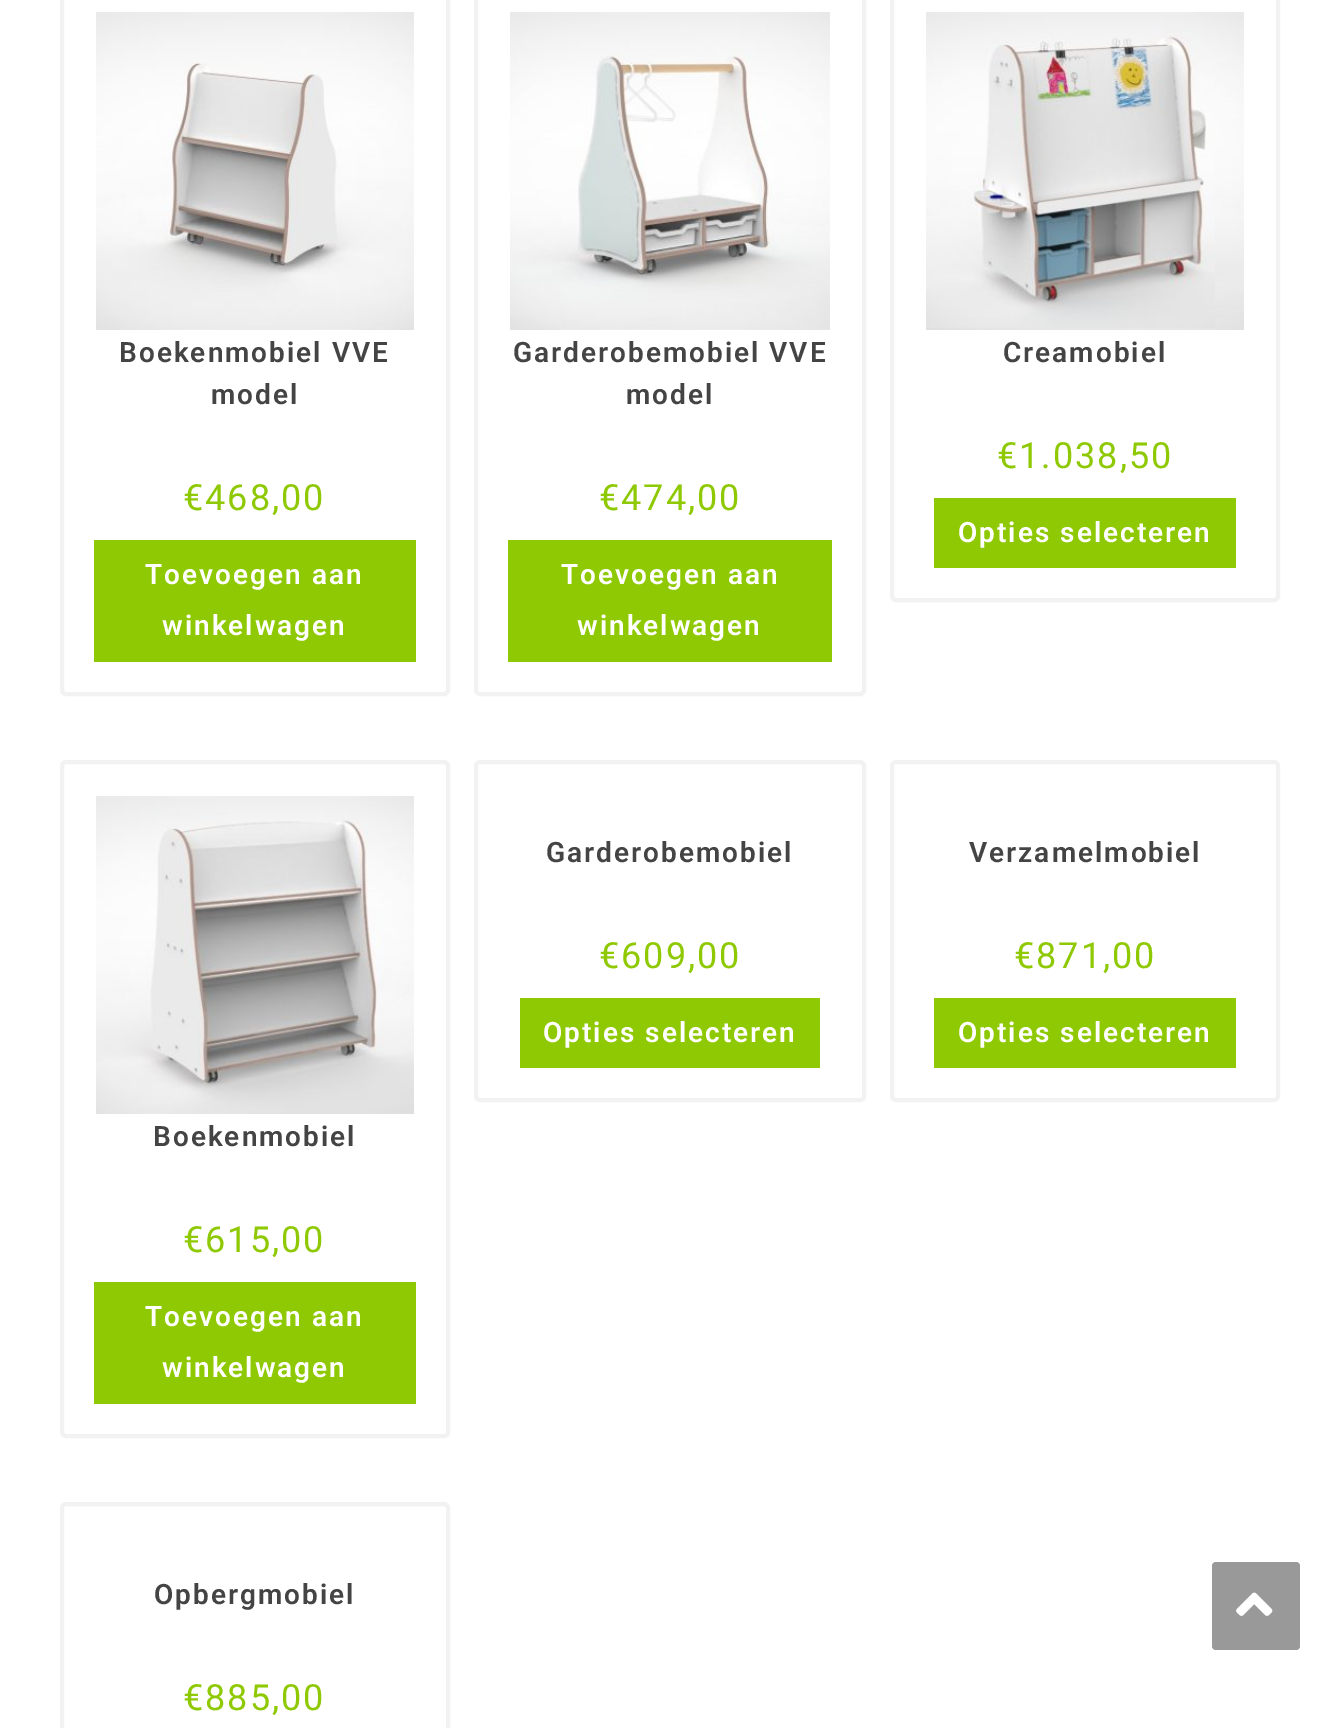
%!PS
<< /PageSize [1339 1728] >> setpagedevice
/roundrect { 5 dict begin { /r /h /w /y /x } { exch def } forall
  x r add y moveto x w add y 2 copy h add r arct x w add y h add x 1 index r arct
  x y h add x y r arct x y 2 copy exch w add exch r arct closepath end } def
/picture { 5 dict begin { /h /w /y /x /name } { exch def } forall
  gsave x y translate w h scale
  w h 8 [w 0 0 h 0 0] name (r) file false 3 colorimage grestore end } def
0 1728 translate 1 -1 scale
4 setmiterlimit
1 setgray
0 0 1339 1728 rectfill
0.949 setgray
4 setlinewidth
62 -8 386 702 4 roundrect stroke
(img1.rgb) 96 12 318 318 picture
/Roboto-SemiBold [28 0 0 -28 0 0] selectfont
0.267 setgray
119 362 moveto 2 0 (Boekenmobiel VVE) ashow
211 404 moveto 2 0 (model) ashow
/Roboto-Regular [36 0 0 -36 0 0] selectfont
0.561 0.788 0.012 setrgbcolor
183 510 moveto 2 0 (€468,00) ashow
94 540 322 122 rectfill
/Roboto-SemiBold [28 0 0 -28 0 0] selectfont
1 setgray
145 584 moveto 2 0 (Toevoegen aan) ashow
162 635 moveto 2 0 (winkelwagen) ashow
0.949 setgray
476 -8 388 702 4 roundrect stroke
(img2.rgb) 510 12 320 318 picture
0.267 setgray
513 362 moveto 2 0 (Garderobemobiel VVE) ashow
626 404 moveto 2 0 (model) ashow
/Roboto-Regular [36 0 0 -36 0 0] selectfont
0.561 0.788 0.012 setrgbcolor
599 510 moveto 2 0 (€474,00) ashow
508 540 324 122 rectfill
/Roboto-SemiBold [28 0 0 -28 0 0] selectfont
1 setgray
561 584 moveto 2 0 (Toevoegen aan) ashow
577 635 moveto 2 0 (winkelwagen) ashow
0.949 setgray
892 -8 386 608 4 roundrect stroke
(img3.rgb) 926 12 318 318 picture
(img4.rgb) 926 29 289 299 picture
0.267 setgray
1003 362 moveto 2 0 (Creamobiel) ashow
/Roboto-Regular [36 0 0 -36 0 0] selectfont
0.561 0.788 0.012 setrgbcolor
997 468 moveto 2 0 (€1.038,50) ashow
934 498 302 70 rectfill
/Roboto-SemiBold [28 0 0 -28 0 0] selectfont
1 setgray
958 542 moveto 2 0 (Opties selecteren) ashow
0.949 setgray
476 762 388 338 4 roundrect stroke
0.267 setgray
546 862 moveto 2 0 (Garderobemobiel) ashow
/Roboto-Regular [36 0 0 -36 0 0] selectfont
0.561 0.788 0.012 setrgbcolor
599 968 moveto 2 0 (€609,00) ashow
520 998 300 70 rectfill
/Roboto-SemiBold [28 0 0 -28 0 0] selectfont
1 setgray
543 1042 moveto 2 0 (Opties selecteren) ashow
0.949 setgray
892 762 386 338 4 roundrect stroke
0.267 setgray
969 862 moveto 2 0 (Verzamelmobiel) ashow
/Roboto-Regular [36 0 0 -36 0 0] selectfont
0.561 0.788 0.012 setrgbcolor
1014 968 moveto 2 0 (€871,00) ashow
934 998 302 70 rectfill
/Roboto-SemiBold [28 0 0 -28 0 0] selectfont
1 setgray
958 1042 moveto 2 0 (Opties selecteren) ashow
0.949 setgray
62 762 386 674 4 roundrect stroke
(img5.rgb) 96 796 318 19 picture
(img6.rgb) 96 815 318 299 picture
0.267 setgray
153 1146 moveto 2 0 (Boekenmobiel) ashow
/Roboto-Regular [36 0 0 -36 0 0] selectfont
0.561 0.788 0.012 setrgbcolor
183 1252 moveto 2 0 (€615,00) ashow
94 1282 322 122 rectfill
/Roboto-SemiBold [28 0 0 -28 0 0] selectfont
1 setgray
145 1326 moveto 2 0 (Toevoegen aan) ashow
162 1377 moveto 2 0 (winkelwagen) ashow
0.949 setgray
62 1504 386 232 4 roundrect stroke
0.267 setgray
154 1604 moveto 2 0 (Opbergmobiel) ashow
/Roboto-Regular [36 0 0 -36 0 0] selectfont
0.561 0.788 0.012 setrgbcolor
183 1710 moveto 2 0 (€885,00) ashow
0.6 setgray
1212 1562 88 88 4 roundrect fill
(img7.rgb) 1236 1592 37 24 picture
showpage
